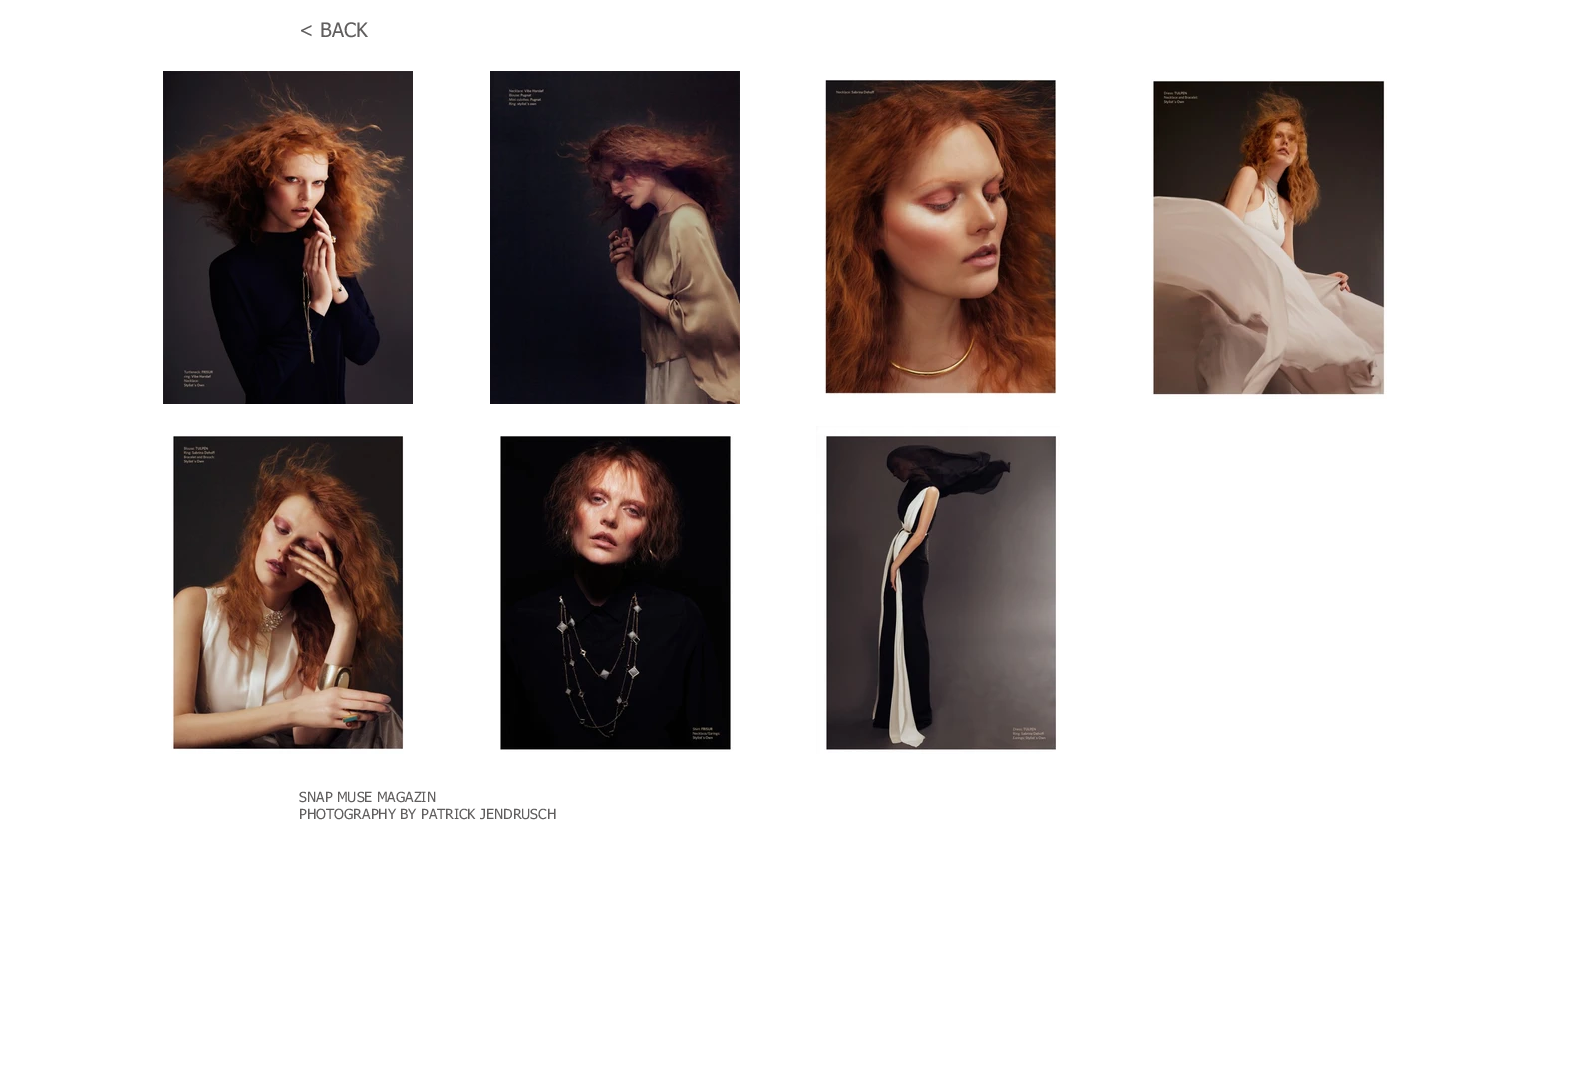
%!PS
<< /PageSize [1578 1073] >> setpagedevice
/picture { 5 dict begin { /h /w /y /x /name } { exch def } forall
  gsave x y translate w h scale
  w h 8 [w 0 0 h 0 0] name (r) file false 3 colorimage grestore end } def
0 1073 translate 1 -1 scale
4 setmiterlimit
1 setgray
0 0 1578 1073 rectfill
/tahoma-Regular [20 0 0 -20 0 0] selectfont
0.376 0.369 0.369 setrgbcolor
299 37 moveto (< BACK) show
(img1.rgb) 163 71 250 333 picture
(img2.rgb) 490 71 250 333 picture
(img3.rgb) 824 79 233 319 picture
(img4.rgb) 1151 79 236 320 picture
(img5.rgb) 171 434 233 320 picture
(img6.rgb) 500 434 234 318 picture
(img7.rgb) 816 426 244 328 picture
/tahoma-Regular [14 0 0 -14 0 0] selectfont
299 802 moveto (SNAP MUSE MAGAZIN) show
299 819 moveto (PHOTOGRAPHY BY PATRICK JENDRUSCH) show
showpage
